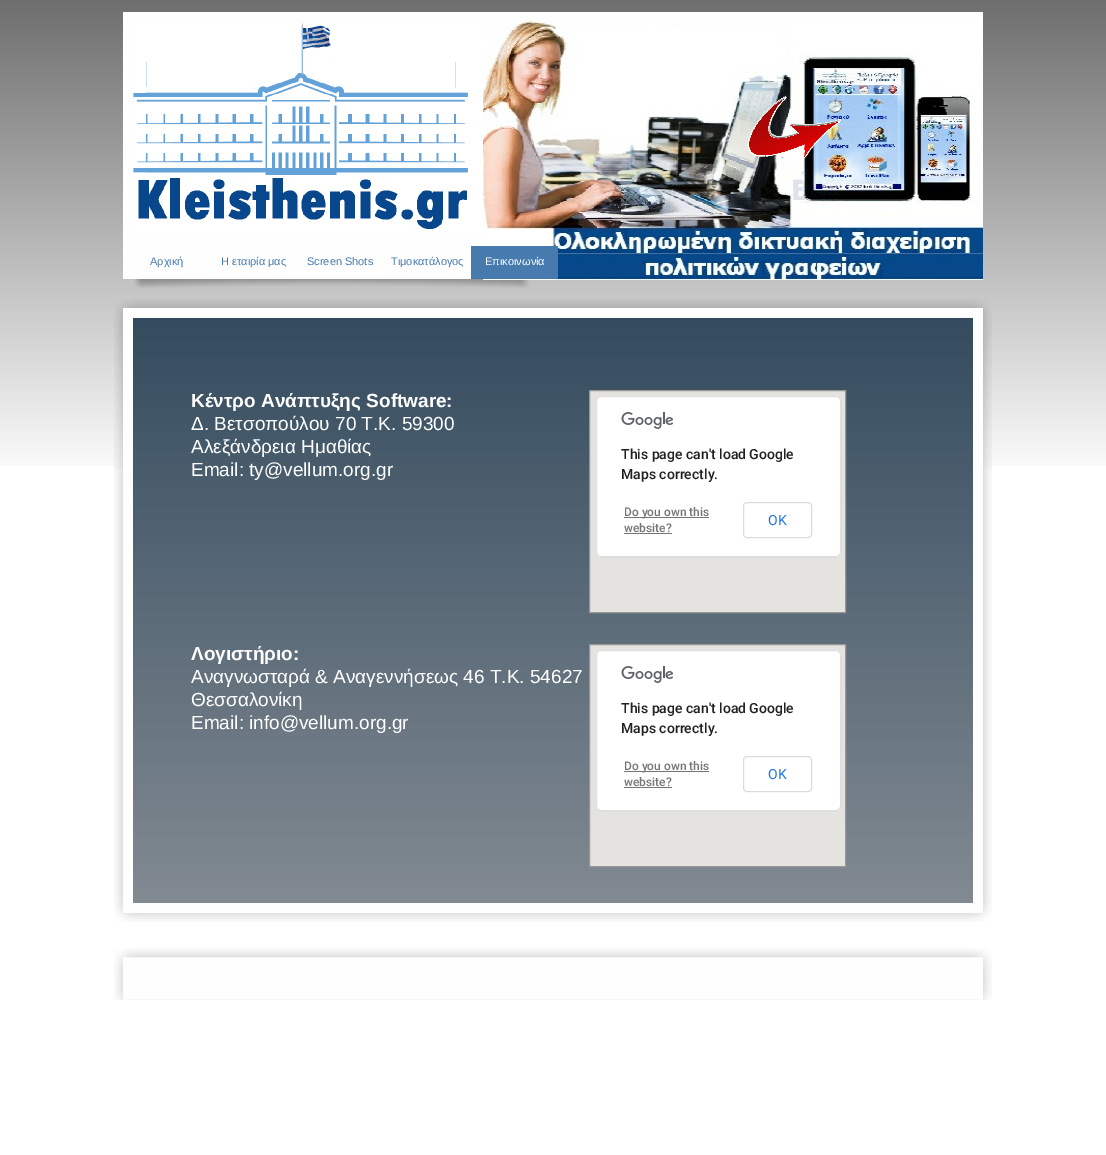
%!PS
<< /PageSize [1106 1155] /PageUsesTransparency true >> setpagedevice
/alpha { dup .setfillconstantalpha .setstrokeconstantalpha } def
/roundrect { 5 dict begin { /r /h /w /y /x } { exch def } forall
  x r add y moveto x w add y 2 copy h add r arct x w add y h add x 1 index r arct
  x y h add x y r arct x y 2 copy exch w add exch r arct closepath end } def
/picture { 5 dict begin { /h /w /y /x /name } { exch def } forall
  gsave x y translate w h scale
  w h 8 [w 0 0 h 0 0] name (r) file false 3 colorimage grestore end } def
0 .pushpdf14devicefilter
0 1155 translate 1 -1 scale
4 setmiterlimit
1 setgray
0 0 1106 1155 rectfill
(img1.rgb) 0 0 1106 466 picture
(img2.rgb) 123 12 860 276 picture
(img3.rgb) 483 21 500 259 picture
(img4.rgb) 747 96 95 63 picture
0.996 setgray
123 246 348 33 rectfill
/LiberationSans-Regular [11 0 0 -11 0 0] selectfont
0.275 0.482 0.682 setrgbcolor
150 265 moveto (Αρχική) show
221 265 moveto (Η εταιρία μας) show
307 265 moveto (Screen Shots) show
391 265 moveto (Τιμοκατάλογος) show
0.278 0.482 0.678 setrgbcolor
471 246 87 33 rectfill
1 setgray
485 265 moveto (Επικοινωνία) show
(img5.rgb) 114 299 878 623 picture
/LiberationSans-Bold [19 0 0 -19 0 0] selectfont
191 407 moveto (Κέντρο Ανάπτυξης Software:) show
/LiberationSans-Regular [19 0 0 -19 0 0] selectfont
191 430 moveto (Δ. Βετσοπούλου 70 Τ.Κ. 59300) show
191 453 moveto (Αλεξάνδρεια Ημαθίας) show
191 476 moveto (Email: ty@vellum.org.gr) show
/LiberationSans-Bold [19 0 0 -19 0 0] selectfont
191 660 moveto (Λογιστήριο:) show
/LiberationSans-Regular [19 0 0 -19 0 0] selectfont
191 683 moveto (Αναγνωσταρά & Αναγεννήσεως 46 Τ.Κ. 54627) show
191 706 moveto (Θεσσαλονίκη) show
191 729 moveto (Email: info@vellum.org.gr) show
0.898 0.89 0.875 setrgbcolor
newpath 589.5 390.5 moveto 845.5 390.5 lineto 845.5 612.5 lineto 589.5 612.5 lineto closepath gsave fill grestore
0.592 setgray
stroke
1 setgray
596 396 245 161 5 roundrect fill
0.12 alpha
0 setgray
596.5 396.5 244 160 4.5 roundrect stroke
1 alpha
(img6.rgb) 621 412 52 17 picture
/Roboto-Medium [14 0 0 -14 0 0] selectfont
0.129 setgray
621 459 moveto (This page can't load Google) show
621 479 moveto (Maps correctly.) show
0.459 setgray
624 517 85 1 rectfill
/Roboto-Medium [12 0 0 -12 0 0] selectfont
624 516 moveto (Do you own this) show
624 532 moveto (website?) show
624 533 48 1 rectfill
0.855 0.863 0.878 setrgbcolor
743.5 502.5 68 35 3.5 roundrect stroke
/Roboto-Regular [14 0 0 -14 0 0] selectfont
0.102 0.451 0.91 setrgbcolor
768 525 moveto (OK) show
0.898 0.89 0.875 setrgbcolor
newpath 589.5 644.5 moveto 845.5 644.5 lineto 845.5 866.5 lineto 589.5 866.5 lineto closepath gsave fill grestore
0.592 setgray
stroke
1 setgray
596 650 245 161 5 roundrect fill
0.12 alpha
0 setgray
596.5 650.5 244 160 4.5 roundrect stroke
1 alpha
(img6.rgb) 621 666 52 17 picture
/Roboto-Medium [14 0 0 -14 0 0] selectfont
0.129 setgray
621 713 moveto (This page can't load Google) show
621 733 moveto (Maps correctly.) show
0.459 setgray
624 771 85 1 rectfill
/Roboto-Medium [12 0 0 -12 0 0] selectfont
624 770 moveto (Do you own this) show
624 786 moveto (website?) show
624 787 48 1 rectfill
0.855 0.863 0.878 setrgbcolor
743.5 756.5 68 35 3.5 roundrect stroke
/Roboto-Regular [14 0 0 -14 0 0] selectfont
0.102 0.451 0.91 setrgbcolor
768 779 moveto (OK) show
(img7.rgb) 114 948 878 52 picture
.poppdf14devicefilter showpage
